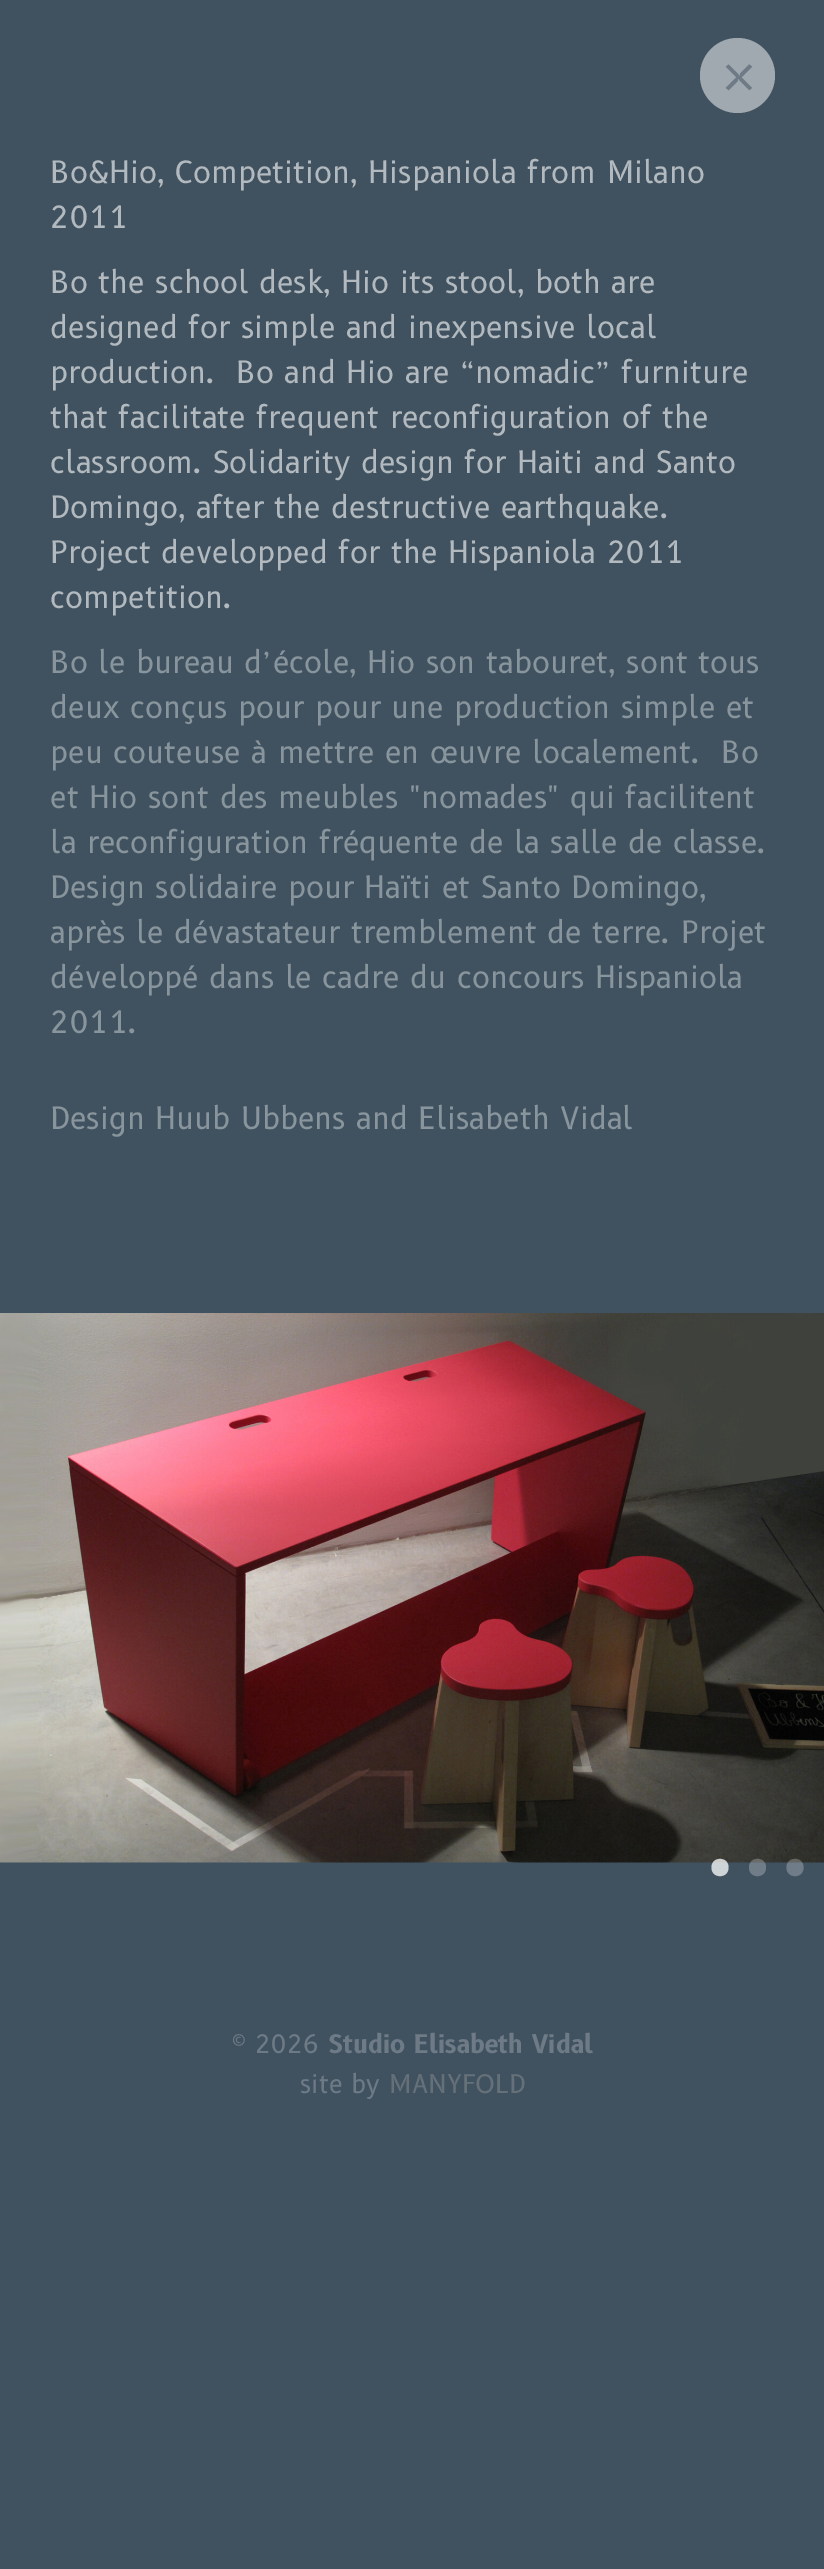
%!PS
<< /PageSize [824 2569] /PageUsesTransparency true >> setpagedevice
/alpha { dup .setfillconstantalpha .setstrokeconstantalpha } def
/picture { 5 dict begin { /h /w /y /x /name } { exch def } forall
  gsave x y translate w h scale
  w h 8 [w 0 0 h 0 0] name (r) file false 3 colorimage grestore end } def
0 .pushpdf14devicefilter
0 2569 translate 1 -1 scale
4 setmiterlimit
0.251 0.322 0.376 setrgbcolor
0 0 824 2569 rectfill
0.627 0.663 0.69 setrgbcolor
newpath 737.5 75.5 37.5 0 360 arc closepath fill
/B612-Regular [50 0 0 -50 0 0] selectfont
0.431 0.482 0.525 setrgbcolor
718 93 moveto (×) show
/B612-Regular [30 0 0 -30 0 0] selectfont
0.702 0.729 0.749 setrgbcolor
50 183 moveto (Bo&Hio, Competition, Hispaniola from Milano) show
50 228 moveto (2011) show
50 293 moveto (Bo the school desk, Hio its stool, both are) show
50 338 moveto (designed for simple and inexpensive local) show
50 383 moveto (production.  Bo and Hio are “nomadic” furniture) show
50 428 moveto (that facilitate frequent reconfiguration of the) show
50 473 moveto (classroom. Solidarity design for Haiti and Santo) show
50 518 moveto (Domingo, after the destructive earthquake.) show
50 563 moveto (Project developped for the Hispaniola 2011) show
50 608 moveto (competition.) show
0.537 0.584 0.616 setrgbcolor
50 673 moveto (Bo le bureau d’école, Hio son tabouret, sont tous) show
50 718 moveto (deux conçus pour pour une production simple et) show
50 763 moveto (peu couteuse à mettre en œuvre localement.  Bo) show
50 808 moveto (et Hio sont des meubles "nomades" qui facilitent) show
50 853 moveto (la reconfiguration fréquente de la salle de classe.) show
50 898 moveto (Design solidaire pour Haïti et Santo Domingo,) show
50 943 moveto (après le dévastateur tremblement de terre. Projet) show
50 988 moveto (développé dans le cadre du concours Hispaniola) show
50 1033 moveto (2011.) show
50 1129 moveto (Design Huub Ubbens and Elisabeth Vidal) show
(img1.rgb) 0 1313 824 550 picture
0.75 alpha
1 setgray
newpath 728.5 1867.5 moveto 728.5 1856 711.5 1856 711.5 1867.5 curveto 711.5 1879 728.5 1879 728.5 1867.5 curveto closepath fill
0.25 alpha
newpath 766 1867.5 moveto 766 1856 749 1856 749 1867.5 curveto 749 1879 766 1879 766 1867.5 curveto closepath 803.5 1867.5 moveto 803.5 1856 786.5 1856 786.5 1867.5 curveto 786.5 1879 803.5 1879 803.5 1867.5 curveto closepath fill
/B612-Regular [25 0 0 -25 0 0] selectfont
1 alpha
0.431 0.482 0.525 setrgbcolor
232 2053 moveto (© 2026) show
/B612-Bold [25 0 0 -25 0 0] selectfont
329 2053 moveto (Studio Elisabeth Vidal) show
/B612-Regular [25 0 0 -25 0 0] selectfont
300 2093 moveto (site by) show
0.4 0.439 0.475 setrgbcolor
389 2093 moveto (MANYFOLD) show
.poppdf14devicefilter showpage
